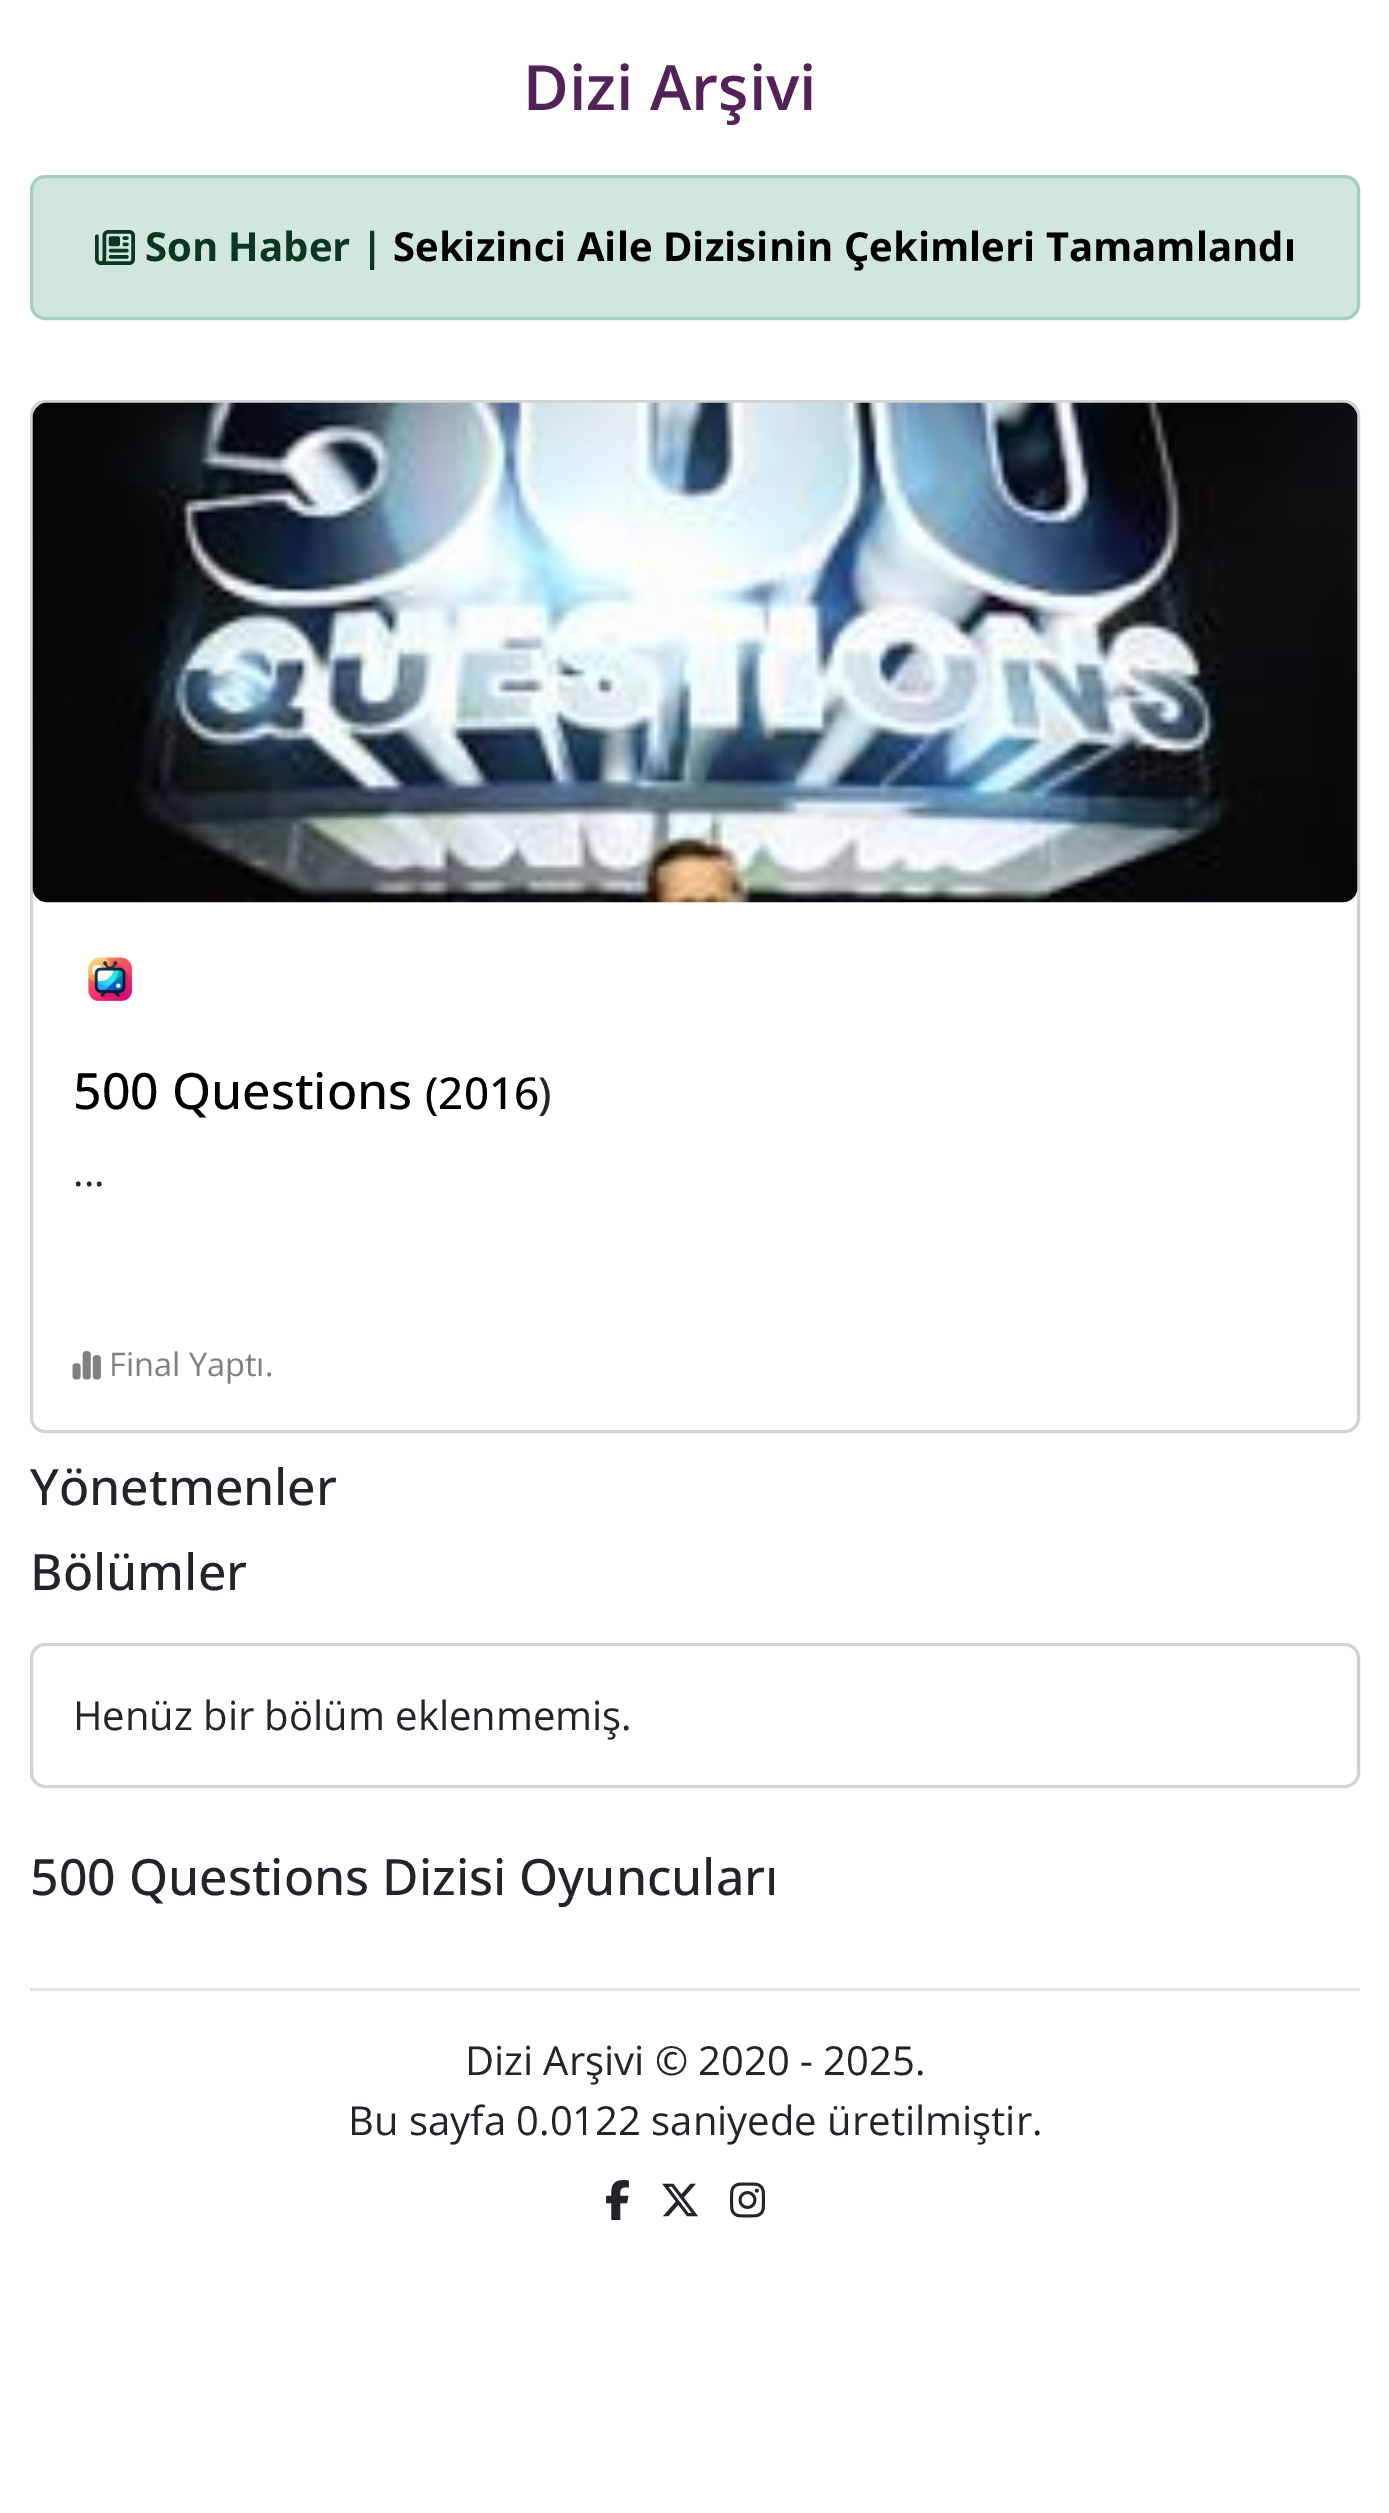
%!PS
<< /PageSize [1389 2513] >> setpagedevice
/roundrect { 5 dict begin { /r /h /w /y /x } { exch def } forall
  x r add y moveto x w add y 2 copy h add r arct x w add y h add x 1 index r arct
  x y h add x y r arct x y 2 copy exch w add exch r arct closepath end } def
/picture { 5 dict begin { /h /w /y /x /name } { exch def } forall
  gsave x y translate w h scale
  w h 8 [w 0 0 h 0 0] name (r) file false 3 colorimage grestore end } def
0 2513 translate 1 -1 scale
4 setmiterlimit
1 setgray
0 0 1389 2513 rectfill
/OpenSans-SemiBold [62.5 0 0 -62.5 0 0] selectfont
0.322 0.133 0.345 setrgbcolor
523 110 moveto (Dizi Arşivi) show
0.82 0.906 0.867 setrgbcolor
31.5 176.5 1327 142 13.5 roundrect gsave fill grestore
0.639 0.812 0.733 setrgbcolor
3 setlinewidth
stroke
(img1.rgb) 95 230 40 35 picture
/OpenSans-Bold [40 0 0 -40 0 0] selectfont
0.039 0.212 0.133 setrgbcolor
145 261 moveto (Son Haber |) show
0 setgray
393 261 moveto (Sekizinci Aile Dizisinin Çekimleri Tamamlandı) show
0.824 setgray
31.5 401.5 1327 1030 13.5 roundrect stroke
(img2.rgb) 32 402 1326 501 picture
(img3.rgb) 88 957 45 44 picture
/OpenSans-Medium [50 0 0 -50 0 0] selectfont
0 setgray
73 1109 moveto (500 Questions) show
/OpenSans-Medium [44 0 0 -44 0 0] selectfont
425 1109 moveto (\(2016) show
0.129 0.145 0.161 setrgbcolor
538 1109 moveto (\)) show
/OpenSans-Regular [40 0 0 -40 0 0] selectfont
73 1186 moveto (...) show
(img4.rgb) 72 1351 29 29 picture
/OpenSans-Regular [32.5 0 0 -32.5 0 0] selectfont
0.502 setgray
109 1376 moveto (Final Yaptı.) show
/OpenSans-Medium [50 0 0 -50 0 0] selectfont
0.129 0.145 0.161 setrgbcolor
30 1505 moveto (Yönetmenler) show
30 1590 moveto (Bölümler) show
0.824 setgray
31.5 1644.5 1327 142 13.5 roundrect stroke
/OpenSans-Regular [40 0 0 -40 0 0] selectfont
0.129 0.145 0.161 setrgbcolor
73 1730 moveto (Henüz bir bölüm eklenmemiş.) show
/OpenSans-Medium [50 0 0 -50 0 0] selectfont
30 1895 moveto (500 Questions Dizisi Oyuncuları) show
0.871 0.886 0.902 setrgbcolor
30 1988 1330 3 rectfill
/OpenSans-Regular [40 0 0 -40 0 0] selectfont
0.129 0.145 0.161 setrgbcolor
465 2075 moveto (Dizi Arşivi © 2020 - 2025.) show
348 2135 moveto (Bu sayfa 0.0122 saniyede üretilmiştir.) show
(img5.rgb) 606 2180 23 40 picture
(img6.rgb) 662 2183 36 34 picture
(img7.rgb) 730 2182 35 36 picture
showpage
